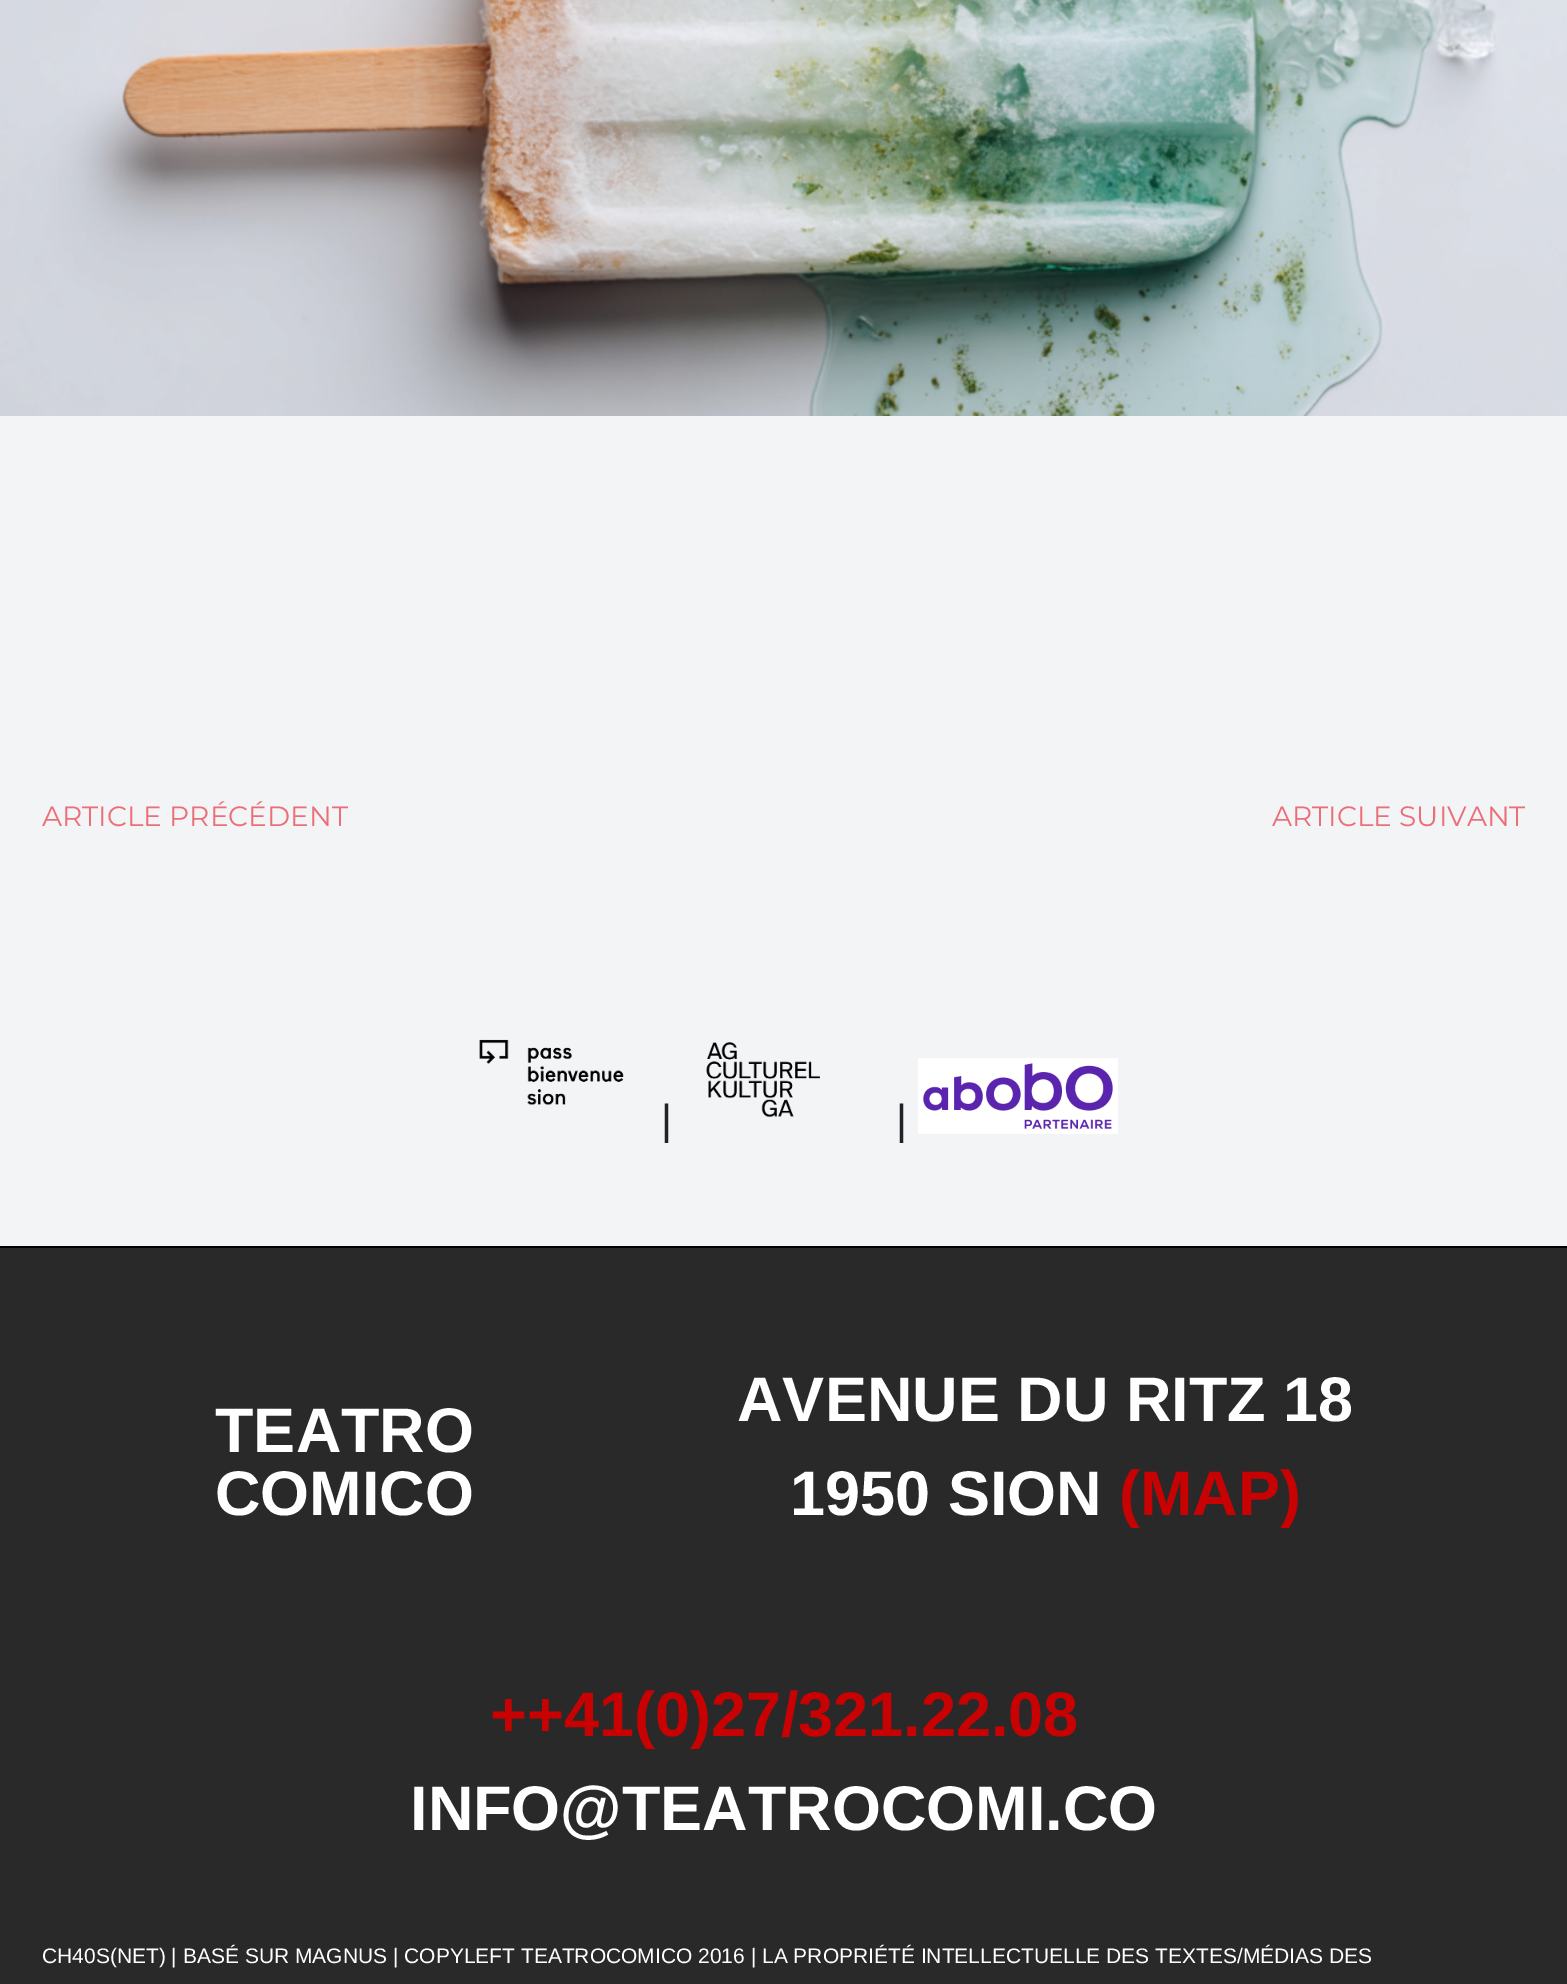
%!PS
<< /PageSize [1567 1984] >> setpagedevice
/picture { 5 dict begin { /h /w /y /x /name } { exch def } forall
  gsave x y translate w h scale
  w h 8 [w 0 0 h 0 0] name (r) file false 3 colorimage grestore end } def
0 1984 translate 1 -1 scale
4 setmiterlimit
0.953 0.957 0.965 setrgbcolor
0 0 1567 1984 rectfill
(img1.rgb) 0 0 1567 416 picture
/Montserrat-Regular [28 0 0 -28 0 0] selectfont
0.922 0.431 0.471 setrgbcolor
42 826 moveto (ARTICLE PRÉCÉDENT) show
1272 826 moveto (ARTICLE SUIVANT) show
(img2.rgb) 479 1039 145 66 picture
/LiberationSans-Regular [42 0 0 -42 0 0] selectfont
0.122 0.137 0.157 setrgbcolor
661 1134 moveto (|) show
(img3.rgb) 706 1042 114 76 picture
896 1134 moveto (|) show
(img4.rgb) 918 1058 200 76 picture
0.161 setgray
0 1248 1567 736 rectfill
0 setgray
0 1246 1567 2 rectfill
/LiberationSans-Bold [63 0 0 -63 0 0] selectfont
1 setgray
215 1452 moveto (TEATRO) show
215 1515 moveto (COMICO) show
737 1421 moveto (AVENUE DU RITZ 18) show
790 1515 moveto (1950 SION) show
0.784 0.008 0.008 setrgbcolor
1119 1515 moveto (\(MAP\)) show
490 1736 moveto (++41\(0\)27/321.22.08) show
1 setgray
410 1830 moveto (INFO@TEATROCOMI.CO) show
/LiberationSans-Regular [21 0 0 -21 0 0] selectfont
42 1963 moveto (CH40S\(NET\) | BASÉ SUR MAGNUS | COPYLEFT TEATROCOMICO 2016 | LA PROPRIÉTÉ INTELLECTUELLE DES TEXTES/MÉDIAS DES) show
showpage
